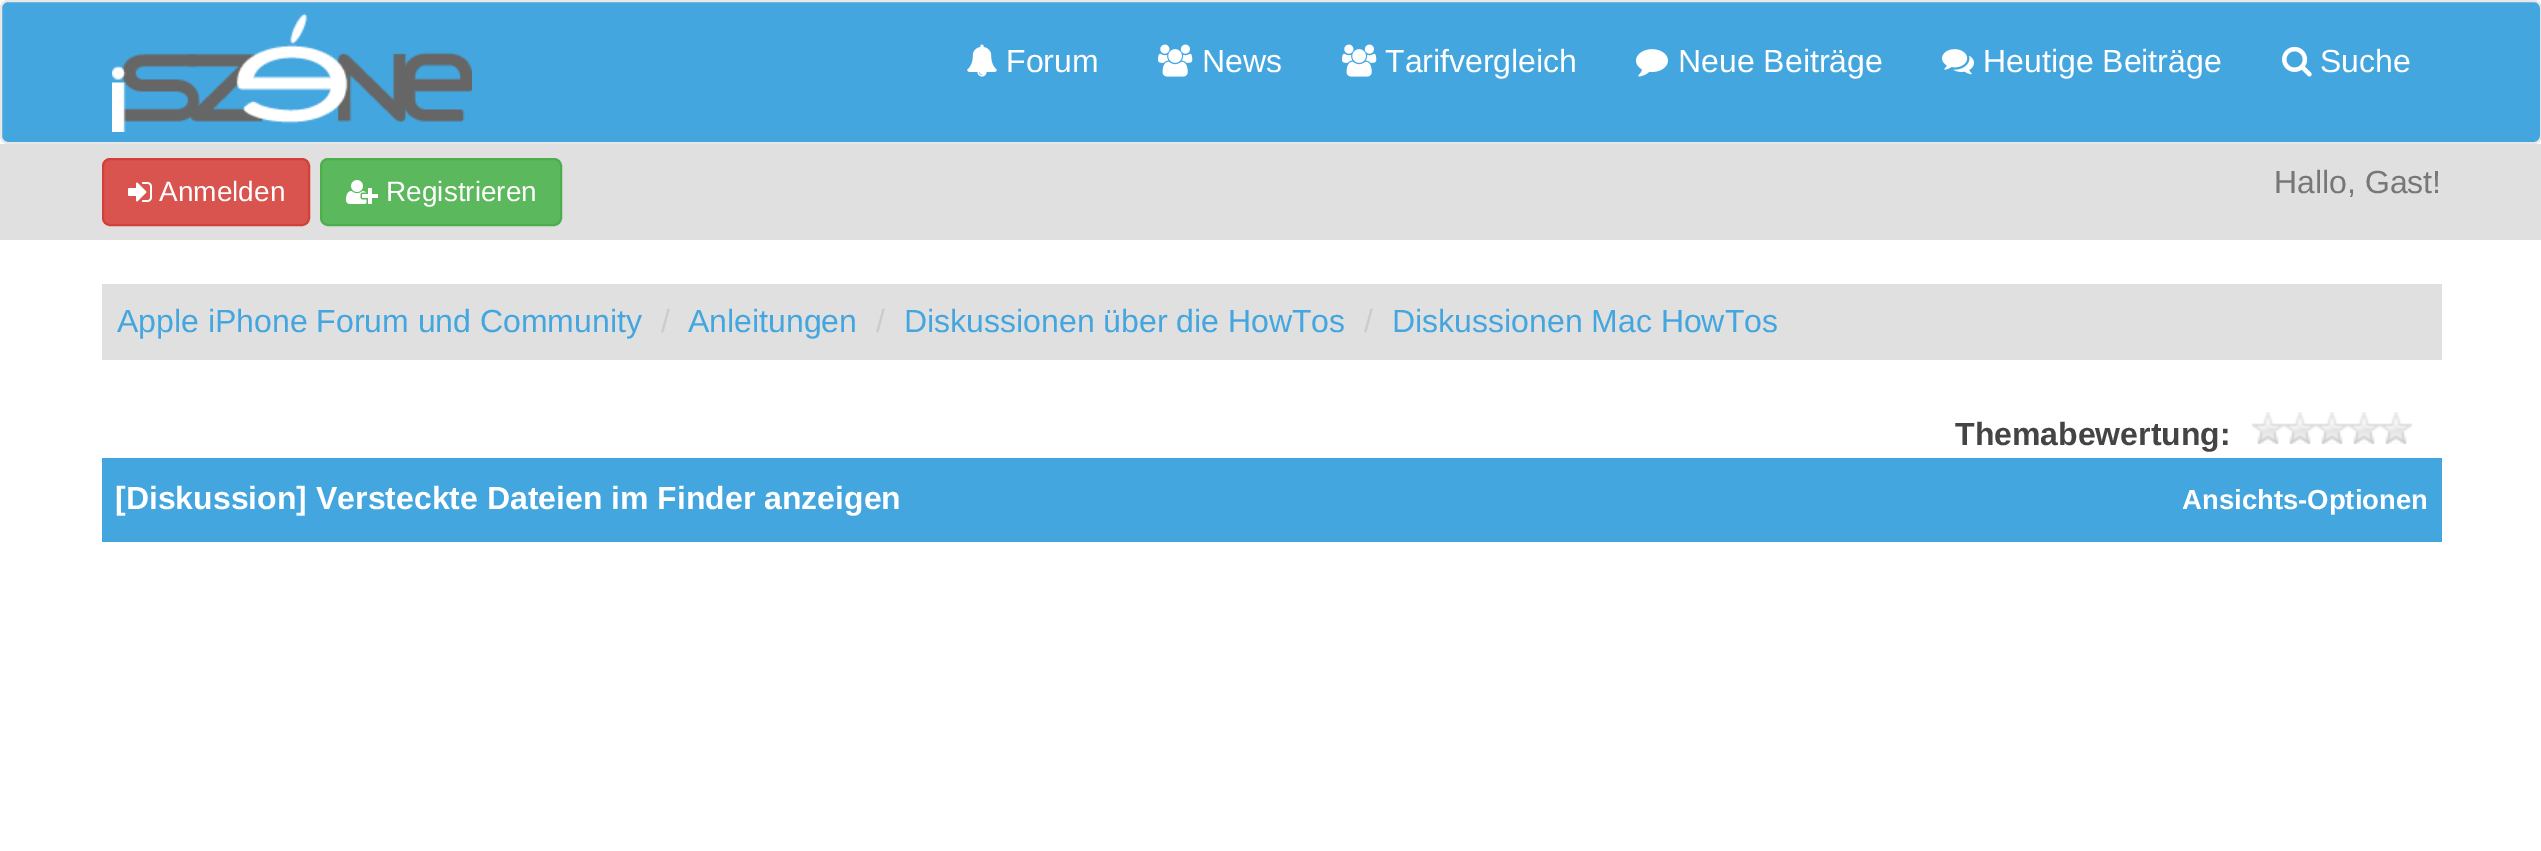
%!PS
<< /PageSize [2541 851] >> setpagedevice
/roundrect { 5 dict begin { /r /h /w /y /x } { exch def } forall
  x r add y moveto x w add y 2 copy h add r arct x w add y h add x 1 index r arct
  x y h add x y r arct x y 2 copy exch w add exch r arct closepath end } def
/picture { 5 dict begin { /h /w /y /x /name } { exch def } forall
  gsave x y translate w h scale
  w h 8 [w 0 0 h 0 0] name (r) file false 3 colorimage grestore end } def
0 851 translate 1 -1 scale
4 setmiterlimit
1 setgray
0 0 2541 851 rectfill
0.263 0.651 0.875 setrgbcolor
1 1 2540 142 7 roundrect gsave fill grestore
0.906 setgray
2 setlinewidth
stroke
(img1.rgb) 112 13 360 119 picture
(img2.rgb) 967 44 30 33 picture
/LiberationSans-Regular [32 0 0 -32 0 0] selectfont
1 setgray
1006 72 moveto (Forum) show
(img3.rgb) 1158 44 35 33 picture
1202 72 moveto (News) show
(img3.rgb) 1342 44 35 33 picture
1385 72 moveto (Tarifvergleich) show
(img4.rgb) 1636 49 32 28 picture
1678 72 moveto (Neue Beiträge) show
(img5.rgb) 1942 49 32 26 picture
1983 72 moveto (Heutige Beiträge) show
(img6.rgb) 2282 46 30 31 picture
2320 72 moveto (Suche) show
0.878 setgray
0 144 2541 96 rectfill
0.851 0.325 0.31 setrgbcolor
103 159 206 66 7 roundrect gsave fill grestore
0.831 0.247 0.227 setrgbcolor
stroke
(img7.rgb) 128 182 24 20 picture
/LiberationSans-Regular [28 0 0 -28 0 0] selectfont
1 setgray
159 201 moveto (Anmelden) show
0.361 0.722 0.361 setrgbcolor
321 159 240 66 7 roundrect gsave fill grestore
0.298 0.682 0.298 setrgbcolor
stroke
(img8.rgb) 346 180 32 24 picture
1 setgray
386 201 moveto (Registrieren) show
/LiberationSans-Regular [32 0 0 -32 0 0] selectfont
0.467 setgray
2274 193 moveto (Hallo, Gast!) show
0.878 setgray
102 284 2340 76 rectfill
0.263 0.651 0.875 setrgbcolor
117 332 moveto (Apple iPhone Forum und Community) show
0.8 setgray
661 332 moveto (/) show
0.263 0.651 0.875 setrgbcolor
688 332 moveto (Anleitungen) show
0.8 setgray
876 332 moveto (/) show
0.263 0.651 0.875 setrgbcolor
904 332 moveto (Diskussionen über die HowTos) show
0.8 setgray
1364 332 moveto (/) show
0.263 0.651 0.875 setrgbcolor
1392 332 moveto (Diskussionen Mac HowTos) show
/LiberationSans-Bold [32 0 0 -32 0 0] selectfont
0.267 setgray
1955 445 moveto (Themabewertung:) show
(img9.rgb) 2252 412 160 32 picture
0.263 0.651 0.875 setrgbcolor
102 458 2340 84 rectfill
1 setgray
115 509 moveto ([Diskussion] Versteckte Dateien im Finder anzeigen) show
/LiberationSans-Bold [27.5 0 0 -27.5 0 0] selectfont
2182 509 moveto (Ansichts-Optionen) show
showpage
